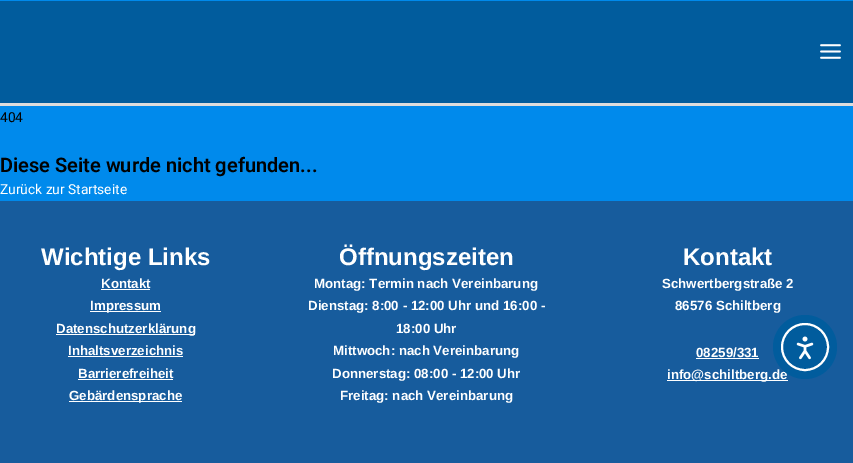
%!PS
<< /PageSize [853 463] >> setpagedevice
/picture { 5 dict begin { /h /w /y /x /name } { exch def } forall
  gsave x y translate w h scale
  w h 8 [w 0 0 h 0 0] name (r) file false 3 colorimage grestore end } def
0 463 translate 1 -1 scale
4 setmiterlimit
0 0.541 0.925 setrgbcolor
0 0 853 463 rectfill
0.004 0.361 0.616 setrgbcolor
0 1 853 102 rectfill
0.867 setgray
0 103 853 3 rectfill
(img1.rgb) 820 44 21 15 picture
/Roboto-Regular [13.75 0 0 -13.75 0 0] selectfont
0.004 setgray
0 122 moveto (404) show
/Roboto-SemiBold [20 0 0 -20 0 0] selectfont
0 172 moveto (Diese Seite wurde nicht gefunden...) show
/Roboto-Regular [13.75 0 0 -13.75 0 0] selectfont
1 setgray
0 194 moveto (Zurück zur Startseite) show
0.09 0.361 0.616 setrgbcolor
0 201 853 262 rectfill
/LiberationSans-Bold [24 0 0 -24 0 0] selectfont
1 setgray
41 265 moveto (Wichtige Links) show
/LiberationSans-Bold [13.3 0 0 -13.3 0 0] selectfont
101 288 moveto (Kontakt) show
101 289 49 1 rectfill
90 311 71 1 rectfill
90 310 moveto (Impressum) show
56 334 139 1 rectfill
56 333 moveto (Datenschutzerklärung) show
68 355 moveto (Inhaltsverzeichnis) show
68 356 115 1 rectfill
78 378 moveto (Barrierefreiheit) show
78 379 95 1 rectfill
69 401 113 1 rectfill
69 400 moveto (Gebärdensprache) show
/LiberationSans-Bold [24 0 0 -24 0 0] selectfont
339 265 moveto (Öffnungszeiten) show
/LiberationSans-Bold [13.3 0 0 -13.3 0 0] selectfont
314 288 moveto (Montag: Termin nach Vereinbarung) show
308 310 moveto (Dienstag: 8:00 - 12:00 Uhr und 16:00 -) show
396 333 moveto (18:00 Uhr) show
333 355 moveto (Mittwoch: nach Vereinbarung) show
332 378 moveto (Donnerstag: 08:00 - 12:00 Uhr) show
340 400 moveto (Freitag: nach Vereinbarung) show
/LiberationSans-Bold [24 0 0 -24 0 0] selectfont
683 265 moveto (Kontakt) show
/LiberationSans-Bold [13.3 0 0 -13.3 0 0] selectfont
662 288 moveto (Schwertbergstraße 2) show
675 310 moveto (86576 Schiltberg) show
696 357 moveto (08259/331) show
696 358 63 1 rectfill
667 380 121 1 rectfill
667 379 moveto (info@schiltberg.de) show
0.004 0.361 0.616 setrgbcolor
newpath 805 347 32 0 360 arc closepath fill
1 setgray
2 setlinewidth
newpath 805 347 23 0 360 arc closepath stroke
(img2.rgb) 796 336 18 24 picture
showpage
